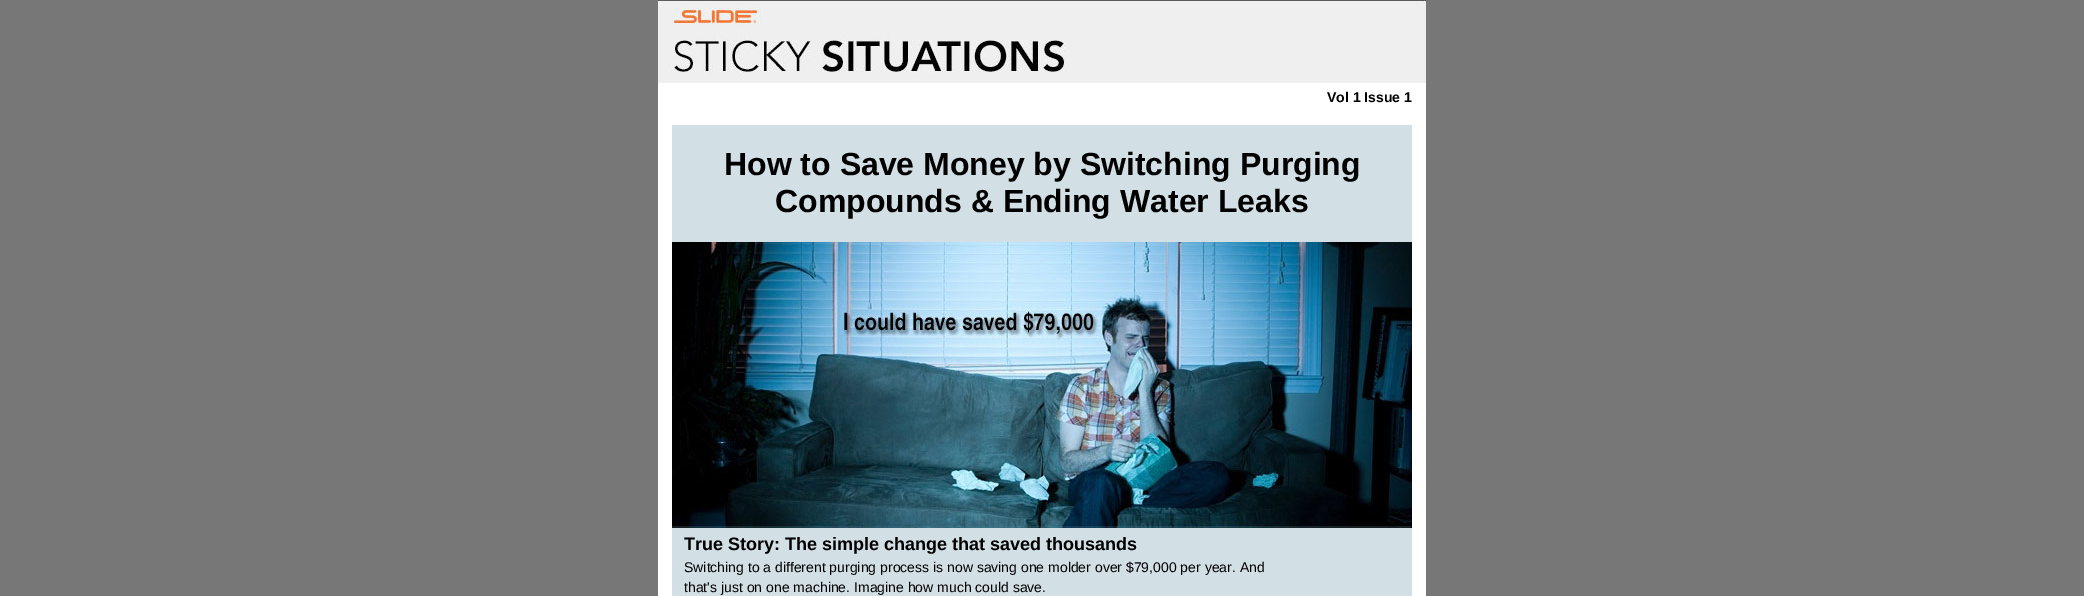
%!PS
<< /PageSize [2084 596] >> setpagedevice
/picture { 5 dict begin { /h /w /y /x /name } { exch def } forall
  gsave x y translate w h scale
  w h 8 [w 0 0 h 0 0] name (r) file false 3 colorimage grestore end } def
0 596 translate 1 -1 scale
4 setmiterlimit
0.467 setgray
0 0 2084 596 rectfill
(img1.rgb) 658 0 768 83 picture
1 setgray
658 83 768 513 rectfill
/LiberationSans-Bold [14 0 0 -14 0 0] selectfont
0 setgray
1327 102 moveto (Vol 1 Issue 1) show
0.824 0.875 0.898 setrgbcolor
672 125 740 471 rectfill
/LiberationSans-Bold [32 0 0 -32 0 0] selectfont
0 setgray
724 175 moveto (How to Save Money by Switching Purging) show
775 212 moveto (Compounds & Ending Water Leaks) show
(img2.rgb) 672 242 740 286 picture
/LiberationSans-Bold [18 0 0 -18 0 0] selectfont
684 550 moveto (True Story: The simple change that saved thousands) show
/LiberationSans-Regular [14 0 0 -14 0 0] selectfont
684 572 moveto (Switching to a different purging process is now saving one molder over $79,000 per year. And) show
684 592 moveto (that's just on one machine. Imagine how much could save.) show
showpage
